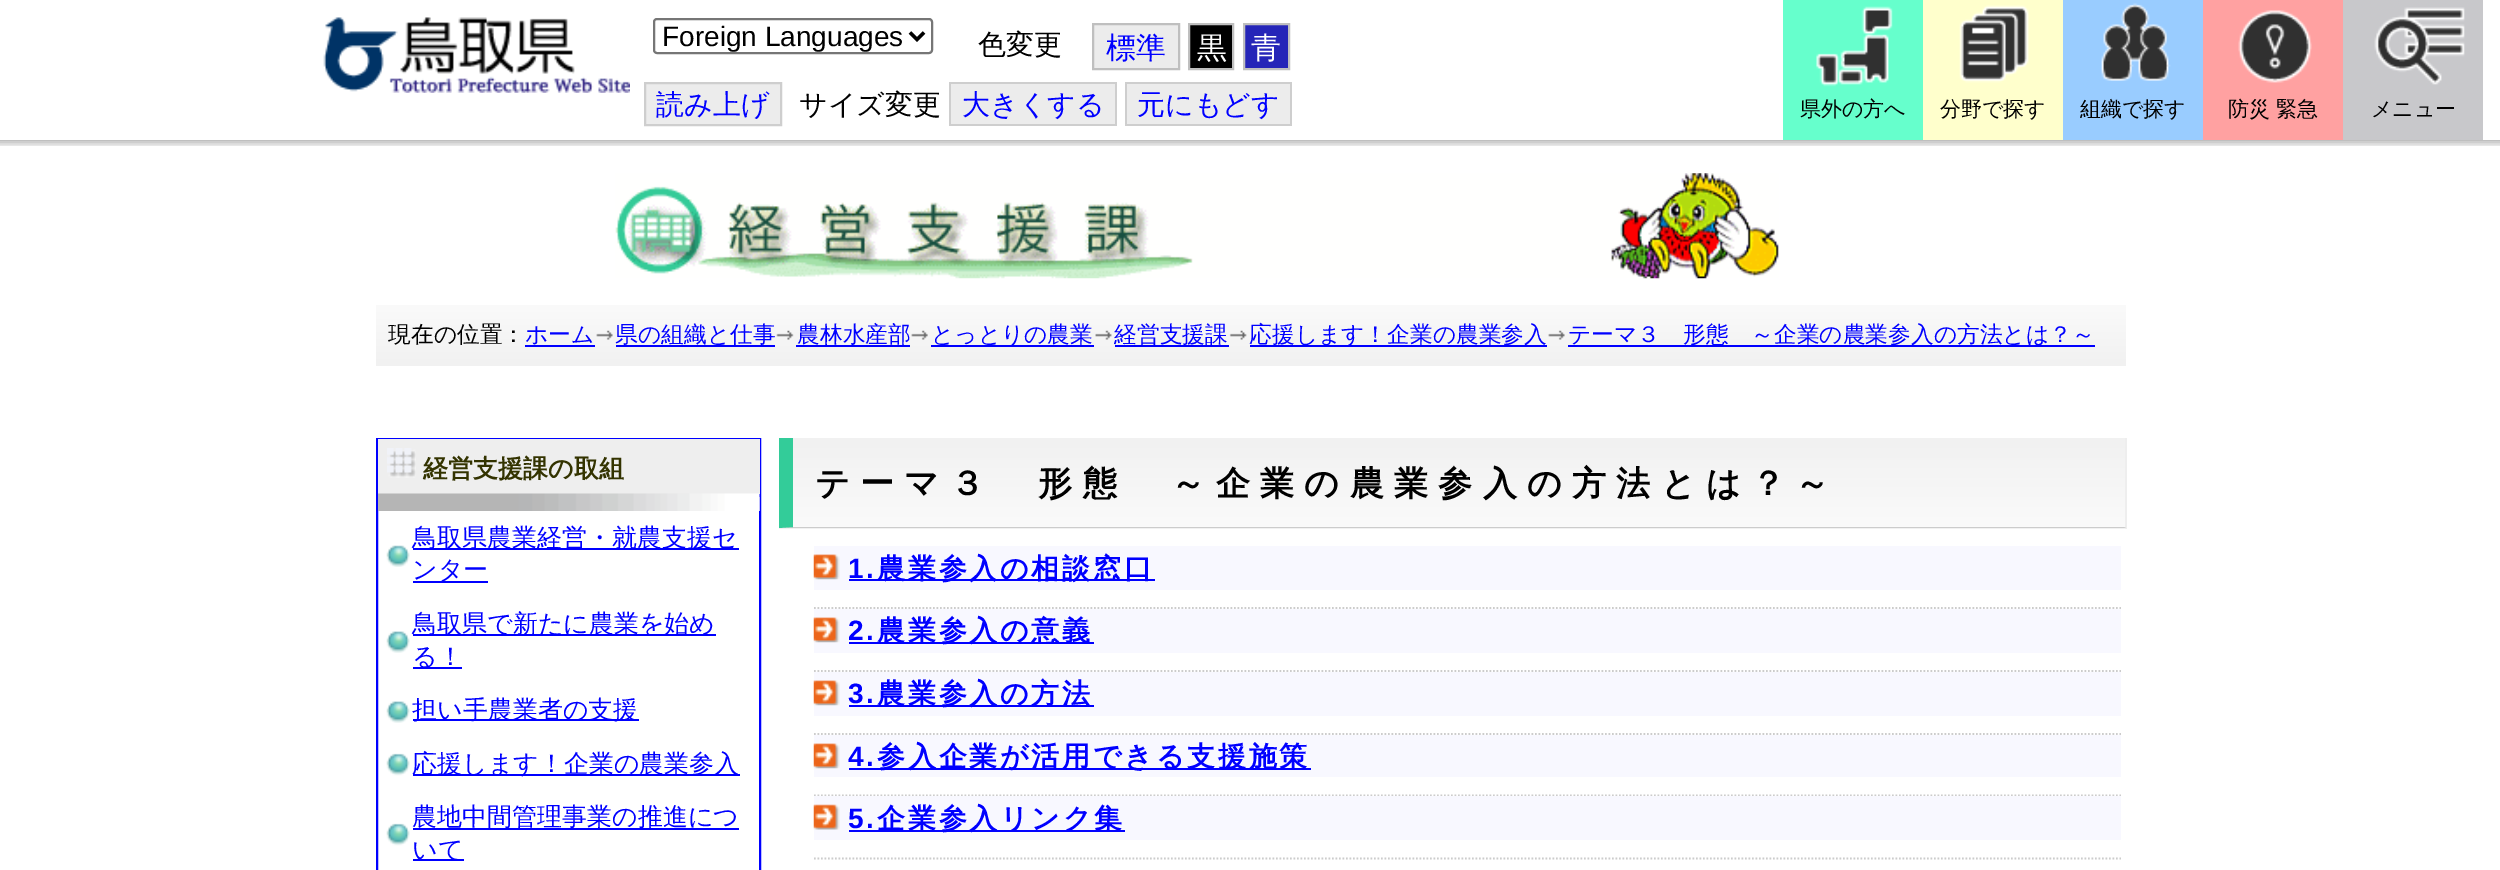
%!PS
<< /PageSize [2500 870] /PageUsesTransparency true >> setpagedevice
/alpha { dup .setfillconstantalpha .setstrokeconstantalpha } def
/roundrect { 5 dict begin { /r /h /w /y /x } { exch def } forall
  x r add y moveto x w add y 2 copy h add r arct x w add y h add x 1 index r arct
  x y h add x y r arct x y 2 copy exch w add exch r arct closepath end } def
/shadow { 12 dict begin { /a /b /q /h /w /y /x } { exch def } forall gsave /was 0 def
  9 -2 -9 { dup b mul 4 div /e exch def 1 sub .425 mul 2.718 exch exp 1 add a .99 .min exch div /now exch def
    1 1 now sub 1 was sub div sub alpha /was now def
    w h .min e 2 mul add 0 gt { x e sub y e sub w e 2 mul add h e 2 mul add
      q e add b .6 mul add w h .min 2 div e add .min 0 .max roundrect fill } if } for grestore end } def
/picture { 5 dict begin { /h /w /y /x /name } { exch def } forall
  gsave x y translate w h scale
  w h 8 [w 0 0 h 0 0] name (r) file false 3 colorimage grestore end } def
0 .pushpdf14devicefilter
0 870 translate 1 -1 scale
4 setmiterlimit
1 setgray
0 0 2500 870 rectfill
gsave
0 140 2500 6 rectclip
0 setgray
-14 2 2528 140 0 4.5 0.1 shadow
-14 2 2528 140 0 4.5 0.1 shadow
-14 2 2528 140 0 4.5 0.1 shadow
-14 2 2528 140 0 4.5 0.1 shadow
grestore
(img1.rgb) 323 17 307 76 picture
0.463 setgray
2 setlinewidth
654 19 278 34 3 roundrect stroke
0 setgray
3.5 setlinewidth
newpath 910 32.5 moveto 917 39.5 lineto 924 32.5 lineto stroke
/LiberationSans-Regular [28 0 0 -28 0 0] selectfont
662 46 moveto (Foreign Languages) show
/WenQuanYiZenHei-Medium [28 0 0 -28 0 0] selectfont
978 54 moveto (色変更) show
0.925 setgray
newpath 1093 24 moveto 1179 24 lineto 1179 69 lineto 1093 69 lineto closepath gsave fill grestore
0.749 setgray
2 setlinewidth
stroke
/WenQuanYiZenHei-Medium [30 0 0 -30 0 0] selectfont
0 0 1 setrgbcolor
1106 58 moveto (標準) show
0 setgray
newpath 1189 24 moveto 1233 24 lineto 1233 69 lineto 1189 69 lineto closepath gsave fill grestore
0.749 setgray
stroke
1 setgray
1197 58 moveto (黒) show
0.145 0.145 0.722 setrgbcolor
newpath 1244 24 moveto 1289 24 lineto 1289 69 lineto 1244 69 lineto closepath gsave fill grestore
0.749 setgray
stroke
1 setgray
1251 58 moveto (青) show
0.925 setgray
newpath 645 83 moveto 781 83 lineto 781 125 lineto 645 125 lineto closepath gsave fill grestore
0.808 setgray
stroke
/WenQuanYiZenHei-Medium [28 0 0 -28 0 0] selectfont
0 0 1 setrgbcolor
656 114 moveto (読み上げ) show
0 setgray
799 114 moveto (サイズ変更) show
0.925 setgray
951 84 164 40 rectfill
0 0 1 setrgbcolor
962 114 moveto (大きくする) show
0.808 setgray
949 82 168 2 rectfill
949 124 40 2 rectfill
949 82 2 44 rectfill
1115 82 2 44 rectfill
989 124 128 2 rectfill
0.925 setgray
1127 84 163 40 rectfill
0 0 1 setrgbcolor
1137 114 moveto (元にもどす) show
0.808 setgray
1125 82 167 2 rectfill
1125 124 41 2 rectfill
1125 82 2 44 rectfill
1290 82 2 44 rectfill
1166 124 126 2 rectfill
0.4 1 0.8 setrgbcolor
1783 0 140 140 rectfill
(img2.rgb) 1816 6 77 81 picture
/WenQuanYiZenHei-Medium [21 0 0 -21 0 0] selectfont
0 setgray
1800 116 moveto (県外の方へ) show
1 1 0.8 setrgbcolor
1923 0 140 140 rectfill
(img3.rgb) 1959 5 70 78 picture
0 setgray
1940 116 moveto (分野で探す) show
0.6 0.8 1 setrgbcolor
2063 0 140 140 rectfill
(img4.rgb) 2101 3 70 78 picture
0 setgray
2080 116 moveto (組織で探す) show
1 0.631 0.631 setrgbcolor
2203 0 140 140 rectfill
(img5.rgb) 2238 10 74 73 picture
0 setgray
2228 116 moveto (防災 緊急) show
0.784 0.784 0.796 setrgbcolor
2343 0 140 140 rectfill
(img6.rgb) 2374 7 91 78 picture
0 setgray
2371 116 moveto (メニュー) show
(img7.rgb) 615 173 1164 106 picture
gsave newpath 376 305 moveto 2126 305 lineto 2126 366 lineto 376 366 lineto closepath clip newpath
<< /ShadingType 2 /ColorSpace /DeviceRGB /Coords [1251 304 1251 366] /Extend [true true] /Function << /FunctionType 2 /Domain [0 1] /C0 [0.98 0.98 0.98] /C1 [0.945 0.945 0.945] /N 1 >> >> shfill grestore
/WenQuanYiZenHei-Medium [22.75 0 0 -22.75 0 0] selectfont
388 342 moveto (現在の位置：) show
0 0 1 setrgbcolor
525 342 moveto (ホーム) show
525 345 70 2 rectfill
(img8.rgb) 596 330 17 10 picture
615 342 moveto (県の組織と仕事) show
616 345 159 2 rectfill
(img9.rgb) 776 330 18 10 picture
796 345 114 2 rectfill
797 342 moveto (農林水産部) show
(img10.rgb) 911 330 17 10 picture
931 345 163 2 rectfill
931 342 moveto (とっとりの農業) show
(img11.rgb) 1095 330 17 10 picture
1115 345 114 2 rectfill
1114 342 moveto (経営支援課) show
(img12.rgb) 1229 330 18 10 picture
1250 345 297 2 rectfill
1249 342 moveto (応援します！企業の農業参入) show
(img8.rgb) 1548 330 17 10 picture
1568 345 527 2 rectfill
1568 342 moveto (テーマ３　形態　～企業の農業参入の方法とは？～) show
377 439 383 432 rectstroke
0.933 setgray
378 439 382 55 rectfill
(img13.rgb) 387 448 29 30 picture
/WenQuanYiZenHei-Bold [25 0 0 -25 0 0] selectfont
0.2 0.2 0 setrgbcolor
423 477 moveto (経営支援課の取組) show
(img14.rgb) 378 493 382 18 picture
0.753 0.753 1 setrgbcolor
759 497 1 14 rectfill
(img15.rgb) 386 545 24 22 picture
0 0 1 setrgbcolor
413 548 326 2 rectfill
/WenQuanYiZenHei-Medium [25 0 0 -25 0 0] selectfont
412 546 moveto (鳥取県農業経営・就農支援セ) show
413 581 75 2 rectfill
412 578 moveto (ンター) show
(img16.rgb) 386 631 24 22 picture
413 634 303 2 rectfill
412 632 moveto (鳥取県で新たに農業を始め) show
413 667 49 2 rectfill
412 665 moveto (る！) show
(img16.rgb) 386 701 24 22 picture
413 719 226 2 rectfill
412 718 moveto (担い手農業者の支援) show
(img17.rgb) 386 753 24 23 picture
413 774 327 2 rectfill
412 772 moveto (応援します！企業の農業参入) show
(img17.rgb) 386 823 24 23 picture
413 828 326 2 rectfill
412 825 moveto (農地中間管理事業の推進につ) show
413 859 51 2 rectfill
412 858 moveto (いて) show
gsave newpath 793 438 moveto 2125 438 lineto 2125 527 lineto 793 527 lineto closepath clip newpath
<< /ShadingType 2 /ColorSpace /DeviceRGB /Coords [1459 437 1459 527] /Extend [true true] /Function << /FunctionType 2 /Domain [0 1] /C0 [0.945 0.945 0.945] /C1 [0.98 0.98 0.98] /N 1 >> >> shfill grestore
gsave newpath 779 527 moveto 2126 527 lineto 2126 529 lineto 779 529 lineto closepath clip newpath
<< /ShadingType 2 /ColorSpace /DeviceRGB /Coords [1459 527 1459 616] /Extend [true true] /Function << /FunctionType 2 /Domain [0 1] /C0 [0.945 0.945 0.945] /C1 [0.98 0.98 0.98] /N 1 >> >> shfill grestore
0.933 setgray
2125 438 2 91 rectfill
0.8 setgray
newpath 2126 528 moveto 779 528 lineto 793 527 lineto 2124 527 lineto closepath fill
0.2 0.8 0.6 setrgbcolor
newpath 779 528 moveto 779 438 lineto 793 438 lineto 793 527 lineto closepath fill
/WenQuanYiZenHei-Bold [34.1 0 0 -34.1 0 0] selectfont
0 setgray
815 495 moveto 10.25 0 (テーマ３　形態　～企業の農業参入の方法とは？～) ashow
0.973 0.973 1 setrgbcolor
814 546 1307 44 rectfill
(img18.rgb) 813 554 27 26 picture
/LiberationSans-Bold [28 0 0 -28 0 0] selectfont
0 0 1 setrgbcolor
848 578 moveto 2.75 0 (1.) ashow
849 579 306 2 rectfill
/WenQuanYiZenHei-Bold [28 0 0 -28 0 0] selectfont
877 578 moveto 2.75 0 (農業参入の相談窓口) ashow
0.8 setgray
1.8 setlinewidth
[1.75 1.75] 0 setdash
newpath 814 608 moveto 2121 608 lineto stroke
0.973 0.973 1 setrgbcolor
814 609 1307 44 rectfill
(img18.rgb) 813 617 27 26 picture
/LiberationSans-Bold [28 0 0 -28 0 0] selectfont
0 0 1 setrgbcolor
848 640 moveto 2.75 0 (2.) ashow
849 642 245 2 rectfill
/WenQuanYiZenHei-Bold [28 0 0 -28 0 0] selectfont
877 640 moveto 2.75 0 (農業参入の意義) ashow
0.8 setgray
newpath 814 671 moveto 2121 671 lineto stroke
0.973 0.973 1 setrgbcolor
814 672 1307 44 rectfill
(img18.rgb) 813 680 27 26 picture
/LiberationSans-Bold [28 0 0 -28 0 0] selectfont
0 0 1 setrgbcolor
848 703 moveto 2.75 0 (3.) ashow
849 705 245 2 rectfill
/WenQuanYiZenHei-Bold [28 0 0 -28 0 0] selectfont
877 703 moveto 2.75 0 (農業参入の方法) ashow
0.8 setgray
newpath 814 734 moveto 2121 734 lineto stroke
0.973 0.973 1 setrgbcolor
814 735 1307 42 rectfill
(img18.rgb) 813 743 27 26 picture
/LiberationSans-Bold [28 0 0 -28 0 0] selectfont
0 0 1 setrgbcolor
848 766 moveto 2.75 0 (4.) ashow
849 768 462 2 rectfill
/WenQuanYiZenHei-Bold [28 0 0 -28 0 0] selectfont
877 766 moveto 2.75 0 (参入企業が活用できる支援施策) ashow
0.8 setgray
newpath 814 795.5 moveto 2121 795.5 lineto stroke
0.973 0.973 1 setrgbcolor
814 796 1307 44 rectfill
(img19.rgb) 813 804 27 26 picture
/LiberationSans-Bold [28 0 0 -28 0 0] selectfont
0 0 1 setrgbcolor
848 828 moveto 2.75 0 (5.) ashow
849 830 276 2 rectfill
/WenQuanYiZenHei-Bold [28 0 0 -28 0 0] selectfont
877 828 moveto 2.75 0 (企業参入リンク集) ashow
0.8 setgray
newpath 814 858.5 moveto 2121 858.5 lineto stroke
.poppdf14devicefilter showpage
